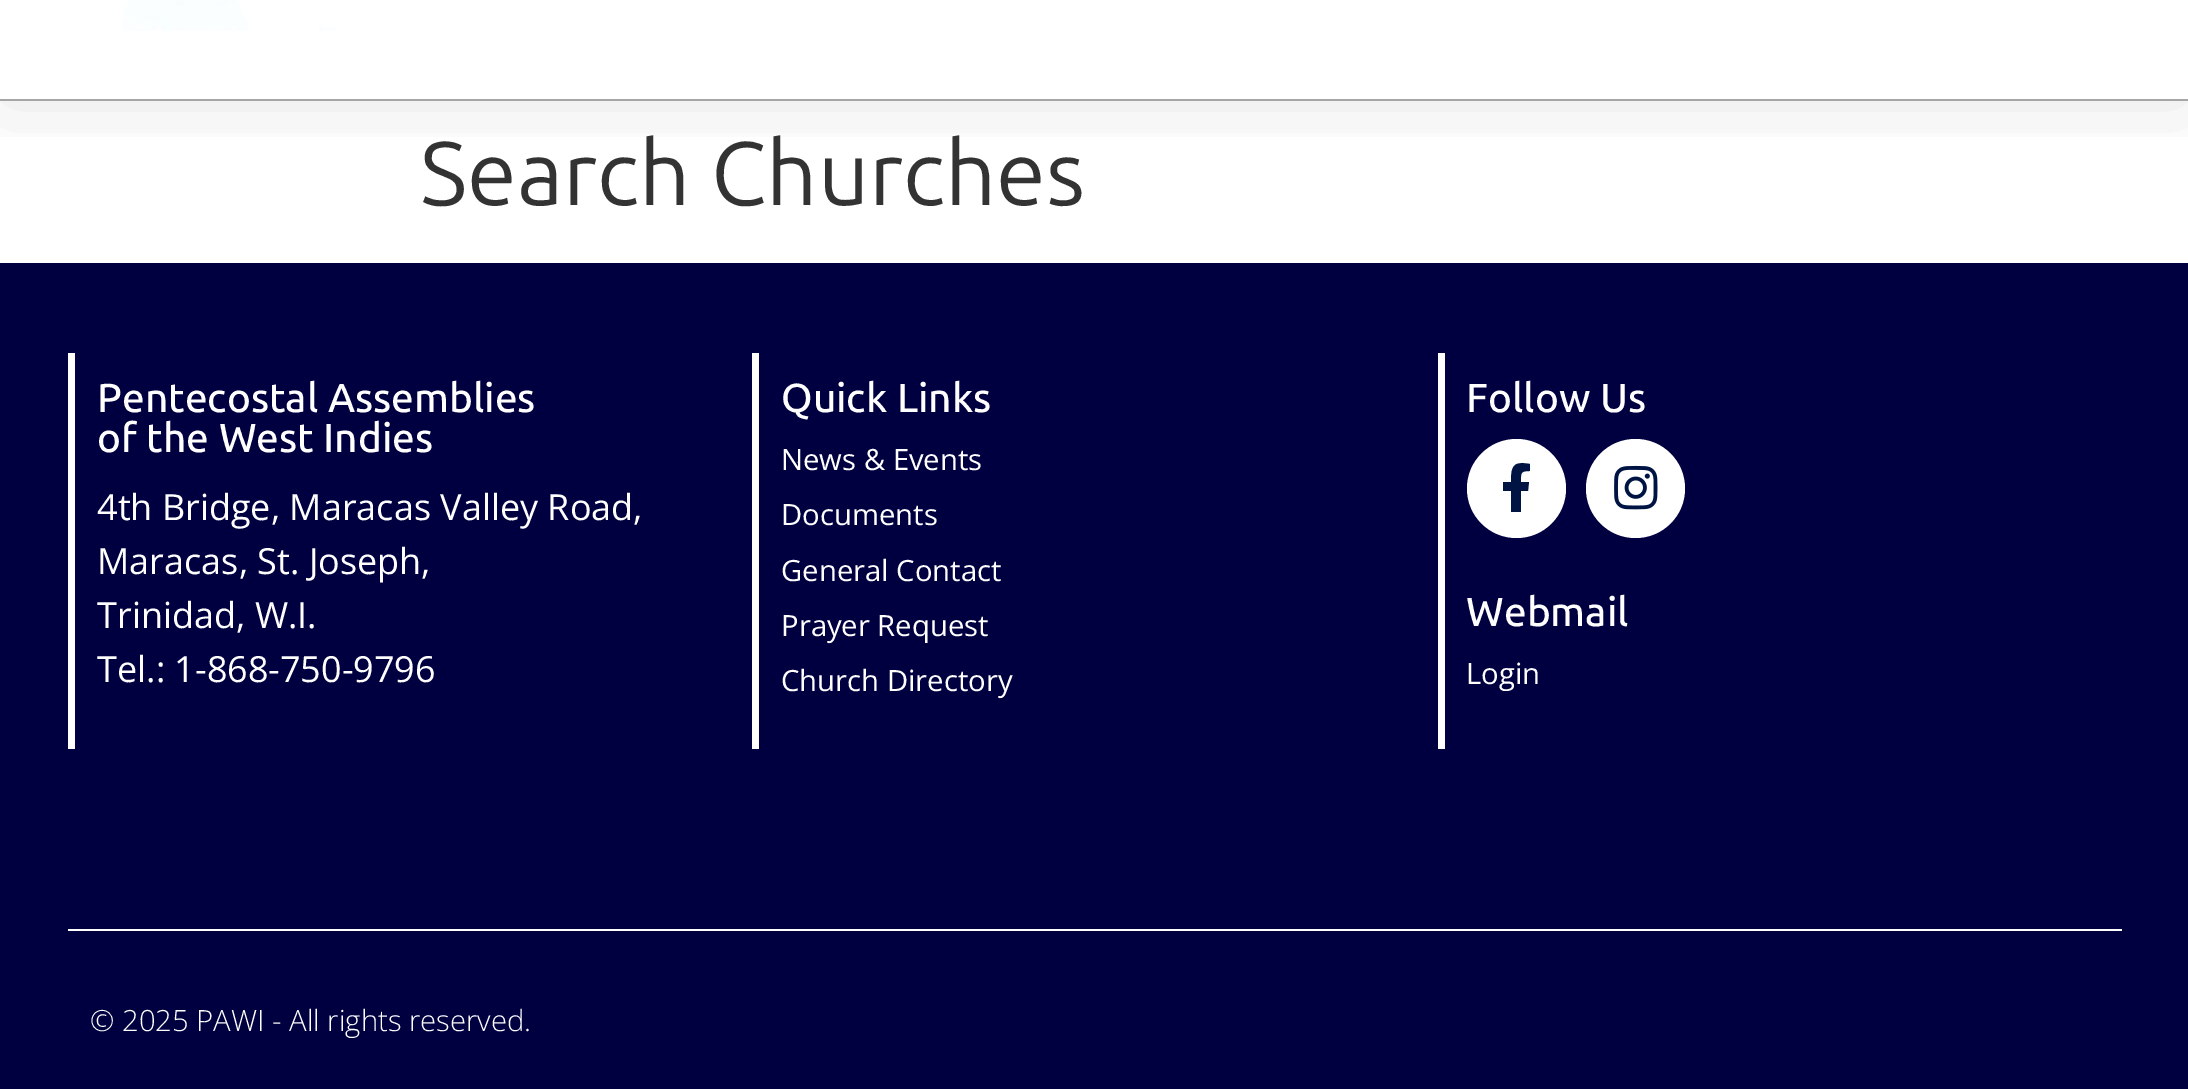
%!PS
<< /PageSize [2188 1089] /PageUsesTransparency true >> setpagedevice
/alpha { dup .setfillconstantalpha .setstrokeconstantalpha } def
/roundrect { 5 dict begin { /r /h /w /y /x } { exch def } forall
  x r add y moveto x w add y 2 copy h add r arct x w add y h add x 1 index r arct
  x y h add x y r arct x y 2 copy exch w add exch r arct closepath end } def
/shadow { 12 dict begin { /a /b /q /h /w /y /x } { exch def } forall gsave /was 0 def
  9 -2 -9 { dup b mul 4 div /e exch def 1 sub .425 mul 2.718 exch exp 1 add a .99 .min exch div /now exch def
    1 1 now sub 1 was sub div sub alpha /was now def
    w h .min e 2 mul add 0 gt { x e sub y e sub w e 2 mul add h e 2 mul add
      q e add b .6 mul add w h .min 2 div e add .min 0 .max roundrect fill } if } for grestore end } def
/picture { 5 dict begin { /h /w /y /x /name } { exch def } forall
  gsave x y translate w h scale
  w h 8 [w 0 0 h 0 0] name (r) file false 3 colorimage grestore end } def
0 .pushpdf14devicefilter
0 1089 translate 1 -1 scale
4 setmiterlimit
1 setgray
0 0 2188 1089 rectfill
gsave
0 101 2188 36 rectclip
0 setgray
0 -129 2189 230 0 43 0.1 shadow
grestore
0.651 setgray
0 99 2188 2 rectfill
(img1.rgb) 123 0 213 31 picture
/Ubuntu-Regular [90 0 0 -90 0 0] selectfont
0.2 setgray
420 205 moveto (Search Churches) show
0 0 0.251 setrgbcolor
0 263 2188 826 rectfill
1 setgray
68 353 7 396 rectfill
/Ubuntu-Medium [40.5 0 0 -40.5 0 0] selectfont
97 412 moveto (Pentecostal Assemblies) show
97 452 moveto (of the West Indies) show
/OpenSans-Regular [36 0 0 -36 0 0] selectfont
97 520 moveto (4th Bridge, Maracas Valley Road,) show
97 574 moveto (Maracas, St. Joseph,) show
97 628 moveto (Trinidad, W.I.) show
97 682 moveto (Tel.: 1-868-750-9796) show
752 353 7 396 rectfill
/Ubuntu-Medium [40.5 0 0 -40.5 0 0] selectfont
781 412 moveto (Quick Links) show
/OpenSans-Regular [29.25 0 0 -29.25 0 0] selectfont
781 470 moveto (News & Events) show
781 525 moveto (Documents) show
781 581 moveto (General Contact) show
781 636 moveto (Prayer Request) show
781 691 moveto (Church Directory) show
1438 353 7 396 rectfill
/Ubuntu-Medium [40.5 0 0 -40.5 0 0] selectfont
1466 412 moveto (Follow Us) show
newpath 1516.5 488.5 49.5 0 360 arc closepath fill
0 0.078 0.267 setrgbcolor
newpath 1528 491 moveto 1521 491 lineto 1521 512 lineto 1511 512 lineto 1511 491 lineto 1503 491 lineto 1503 482 lineto 1511 482 lineto 1511 466 1513 461 1530 464 curveto 1530 471 lineto 1520 471 1521 473 1521 482 curveto 1529 482 lineto closepath fill
1 setgray
newpath 1635.5 488.5 49.5 0 360 arc closepath fill
(img2.rgb) 1614 465 44 45 picture
1466 626 moveto (Webmail) show
/OpenSans-Regular [29.25 0 0 -29.25 0 0] selectfont
1466 684 moveto (Login) show
68 929 2054 2 rectfill
/OpenSans-Light [29.25 0 0 -29.25 0 0] selectfont
90 1031 moveto (© 2025 PAWI - All rights reserved.) show
.poppdf14devicefilter showpage
